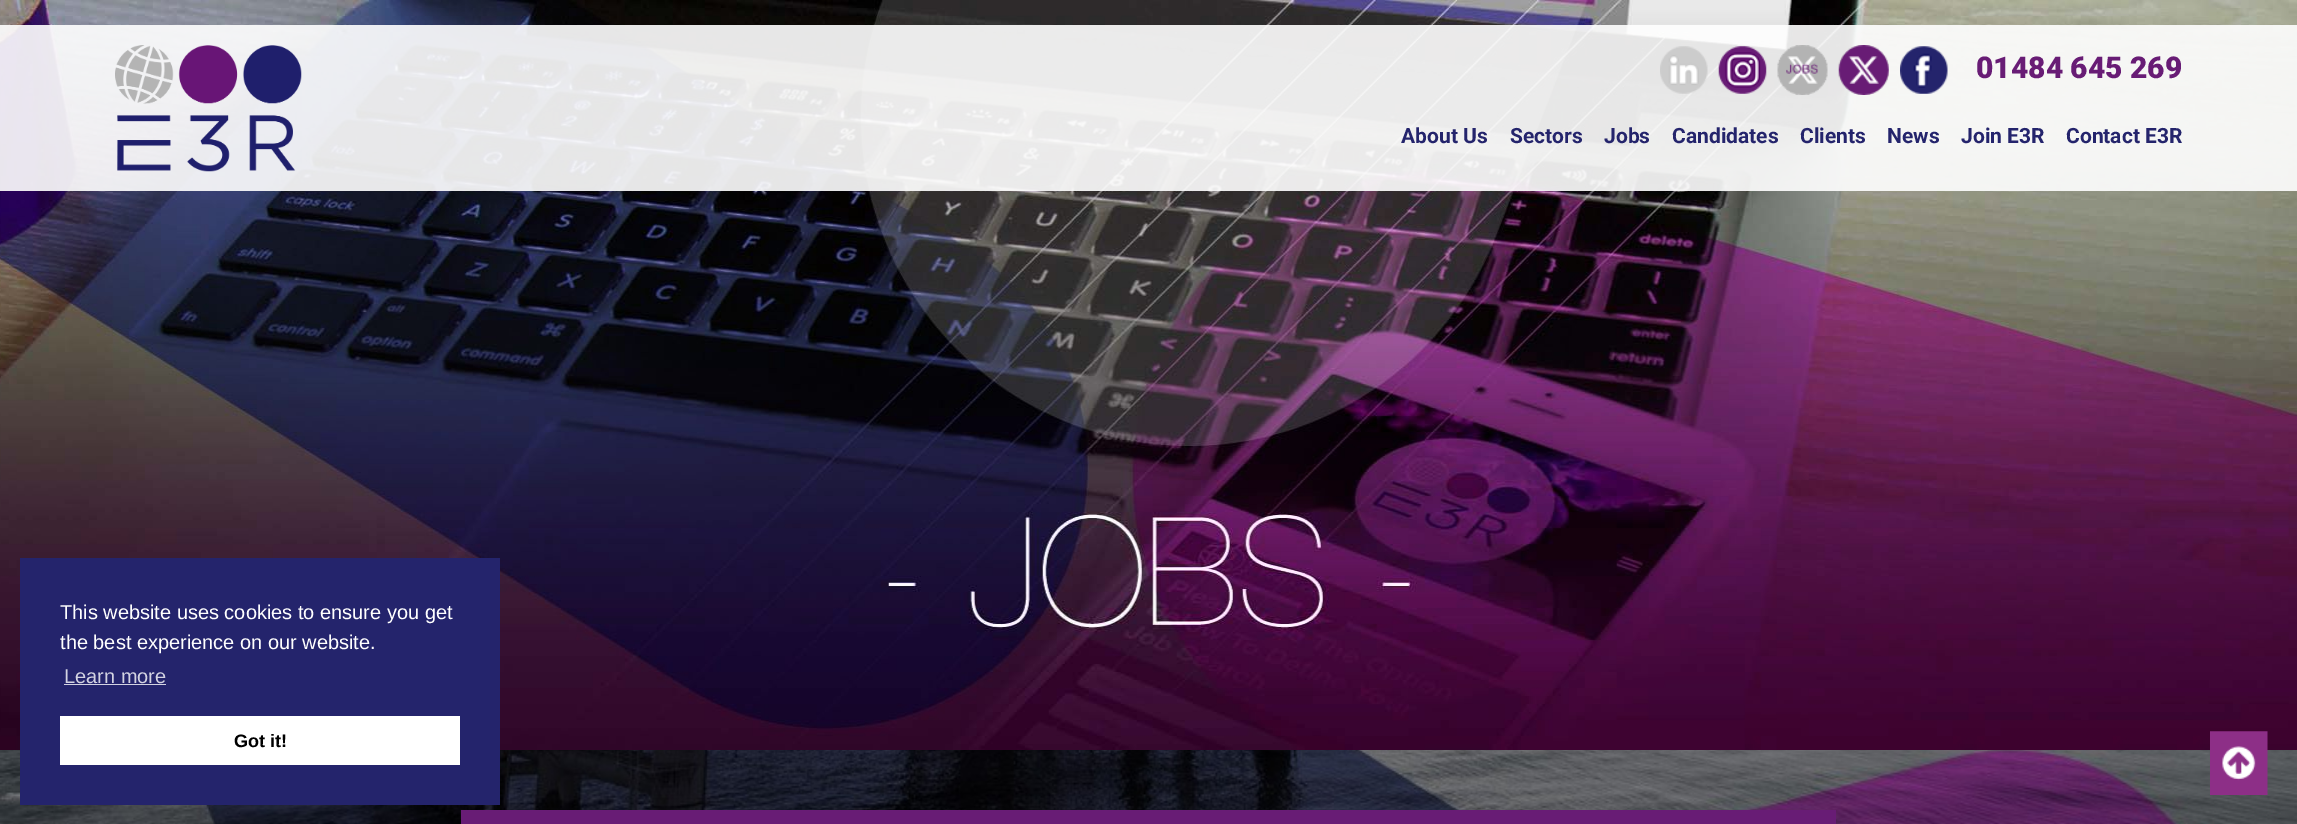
%!PS
<< /PageSize [2297 824] /PageUsesTransparency true >> setpagedevice
/alpha { dup .setfillconstantalpha .setstrokeconstantalpha } def
/picture { 5 dict begin { /h /w /y /x /name } { exch def } forall
  gsave x y translate w h scale
  w h 8 [w 0 0 h 0 0] name (r) file false 3 colorimage grestore end } def
0 .pushpdf14devicefilter
0 824 translate 1 -1 scale
4 setmiterlimit
1 setgray
0 0 2297 824 rectfill
(img1.rgb) 0 0 2297 750 picture
0.9 alpha
0 25 2297 166 rectfill
1 alpha
(img2.rgb) 115 45 187 127 picture
(img3.rgb) 1660 46 48 48 picture
(img4.rgb) 1718 46 49 48 picture
(img5.rgb) 1777 45 51 50 picture
(img6.rgb) 1838 45 51 50 picture
(img7.rgb) 1900 46 48 48 picture
/Roboto-Black [30 0 0 -30 0 0] selectfont
0.408 0.11 0.459 setrgbcolor
1976 78 moveto (01484 645 269) show
/Roboto-Bold [21 0 0 -21 0 0] selectfont
0.141 0.141 0.424 setrgbcolor
1401 143 moveto (About Us) show
1510 143 moveto (Sectors) show
1604 143 moveto (Jobs) show
1672 143 moveto (Candidates) show
1800 143 moveto (Clients) show
1887 143 moveto (News) show
1961 143 moveto (Join E3R) show
2066 143 moveto (Contact E3R) show
(img9.rgb) 0 750 2297 74 picture
20 558 480 247 rectfill
/LiberationSans-Regular [20 0 0 -20 0 0] selectfont
1 setgray
60 619 moveto (This website uses cookies to ensure you get) show
60 649 moveto (the best experience on our website.) show
0.827 0.827 0.886 setrgbcolor
64 683 moveto (Learn more) show
64 684 102 1 rectfill
1 setgray
60 716 400 49 rectfill
/LiberationSans-Bold [18 0 0 -18 0 0] selectfont
0 setgray
234 747 moveto (Got it!) show
(img8.rgb) 2210 731 58 64 picture
0.408 0.11 0.459 setrgbcolor
461 810 1375 14 rectfill
.poppdf14devicefilter showpage
